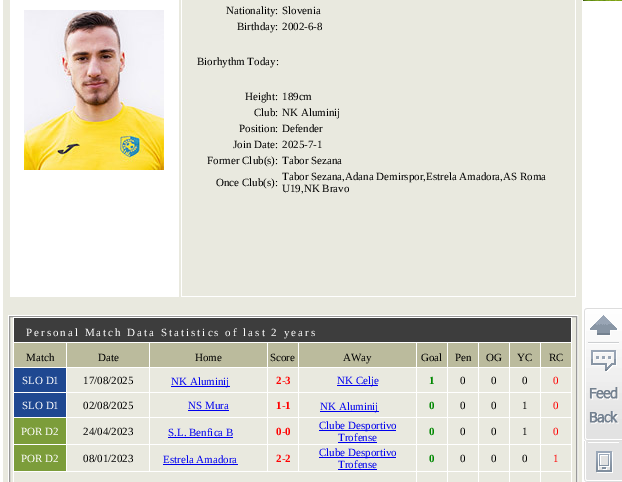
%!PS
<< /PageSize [622 482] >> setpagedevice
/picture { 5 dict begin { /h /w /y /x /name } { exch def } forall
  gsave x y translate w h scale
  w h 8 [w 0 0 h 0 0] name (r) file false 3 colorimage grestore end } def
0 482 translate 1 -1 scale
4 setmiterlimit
1 setgray
0 0 622 482 rectfill
(img1.rgb) 583 0 39 1 picture
0.914 0.914 0.875 setrgbcolor
3 0 579 482 rectfill
1 setgray
10 0 169 297 rectfill
(img2.rgb) 24 10 140 160 picture
575 0 1 297 rectfill
181 296 395 1 rectfill
181 0 1 297 rectfill
/LiberationSerif-Regular [11 0 0 -11 0 0] selectfont
0 setgray
226 14 moveto (Nationality:) show
282 14 moveto (Slovenia) show
237 30 moveto (Birthday:) show
282 30 moveto (2002-6-8) show
197 65 moveto (Biorhythm Today:) show
245 100 moveto (Height:) show
282 100 moveto (189cm) show
254 116 moveto (Club:) show
282 116 moveto (NK Aluminij) show
239 132 moveto (Position:) show
282 132 moveto (Defender) show
233 148 moveto (Join Date:) show
282 148 moveto (2025-7-1) show
207 164 moveto (Former Club\(s\):) show
282 164 moveto (Tabor Sezana) show
216 186 moveto (Once Club\(s\):) show
282 180 moveto (Tabor Sezana,Adana Demirspor,Estrela Amadora,AS Roma) show
282 192 moveto (U19,NK Bravo) show
1 setgray
8.5 315.5 569 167 rectstroke
0.6 setgray
9.5 316.5 567 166 rectstroke
1 setgray
13 317 559 1 rectfill
571 317 1 165 rectfill
13 317 1 165 rectfill
0.239 setgray
14 318 557 24 rectfill
1 setgray
26 336 moveto 2 0 (Personal Match Data Statistics of last 2 years) ashow
0.733 0.733 0.616 setrgbcolor
14 343 557 24 rectfill
1 setgray
540 342 32 1 rectfill
540 367 32 1 rectfill
540 392 32 1 rectfill
540 417 32 1 rectfill
540 444 32 1 rectfill
540 471 32 1 rectfill
540 471 1 11 rectfill
509 471 32 1 rectfill
540 444 1 28 rectfill
509 444 32 1 rectfill
540 417 1 28 rectfill
509 417 32 1 rectfill
540 392 1 26 rectfill
509 392 32 1 rectfill
540 367 1 26 rectfill
509 367 32 1 rectfill
540 342 1 26 rectfill
509 342 32 1 rectfill
509 471 1 11 rectfill
478 471 32 1 rectfill
509 444 1 28 rectfill
478 444 32 1 rectfill
509 417 1 28 rectfill
478 417 32 1 rectfill
509 392 1 26 rectfill
478 392 32 1 rectfill
509 367 1 26 rectfill
478 367 32 1 rectfill
509 342 1 26 rectfill
478 342 32 1 rectfill
478 471 1 11 rectfill
447 471 32 1 rectfill
478 444 1 28 rectfill
447 444 32 1 rectfill
478 417 1 28 rectfill
447 417 32 1 rectfill
478 392 1 26 rectfill
447 392 32 1 rectfill
478 367 1 26 rectfill
447 367 32 1 rectfill
478 342 1 26 rectfill
447 342 32 1 rectfill
447 471 1 11 rectfill
416 471 32 1 rectfill
447 444 1 28 rectfill
416 444 32 1 rectfill
447 417 1 28 rectfill
416 417 32 1 rectfill
447 392 1 26 rectfill
416 392 32 1 rectfill
447 367 1 26 rectfill
416 367 32 1 rectfill
447 342 1 26 rectfill
416 342 32 1 rectfill
416 471 1 11 rectfill
13 471 404 1 rectfill
416 444 1 28 rectfill
298 444 119 1 rectfill
416 417 1 28 rectfill
298 417 119 1 rectfill
416 392 1 26 rectfill
298 392 119 1 rectfill
416 367 1 26 rectfill
298 367 119 1 rectfill
416 342 1 26 rectfill
298 342 119 1 rectfill
298 444 1 28 rectfill
267 444 32 1 rectfill
298 417 1 28 rectfill
267 417 32 1 rectfill
298 392 1 26 rectfill
267 392 32 1 rectfill
298 367 1 26 rectfill
267 367 32 1 rectfill
298 342 1 26 rectfill
267 342 32 1 rectfill
267 444 1 28 rectfill
149 444 119 1 rectfill
267 417 1 28 rectfill
149 417 119 1 rectfill
267 392 1 26 rectfill
149 392 119 1 rectfill
267 367 1 26 rectfill
149 367 119 1 rectfill
267 342 1 26 rectfill
149 342 119 1 rectfill
149 444 1 28 rectfill
66 444 84 1 rectfill
149 417 1 28 rectfill
66 417 84 1 rectfill
149 392 1 26 rectfill
66 392 84 1 rectfill
149 367 1 26 rectfill
66 367 84 1 rectfill
149 342 1 26 rectfill
66 342 84 1 rectfill
66 444 1 28 rectfill
13 444 54 1 rectfill
66 417 1 28 rectfill
13 417 54 1 rectfill
66 392 1 26 rectfill
13 392 54 1 rectfill
66 367 1 26 rectfill
13 367 54 1 rectfill
66 342 1 26 rectfill
13 342 54 1 rectfill
0 setgray
26 361 moveto (Match) show
98 361 moveto (Date) show
195 361 moveto (Home) show
270 361 moveto (Score) show
343 361 moveto (AWay) show
421 361 moveto (Goal) show
455 361 moveto (Pen) show
486 361 moveto (OG) show
517 361 moveto (YC) show
549 361 moveto (RC) show
0.122 0.282 0.569 setrgbcolor
14 368 52 24 rectfill
1 setgray
22 384 moveto (SLO D1) show
0 setgray
83 384 moveto (17/08/2025) show
0 0 0.933 setrgbcolor
171 386 59 1 rectfill
171 385 moveto (NK Aluminij) show
/LiberationSerif-Bold [11 0 0 -11 0 0] selectfont
1 0 0 setrgbcolor
276 384 moveto (2-3) show
0 0 0.933 setrgbcolor
337 385 41 1 rectfill
/LiberationSerif-Regular [11 0 0 -11 0 0] selectfont
337 384 moveto (NK Celje) show
/LiberationSerif-Bold [11 0 0 -11 0 0] selectfont
0 0.533 0 setrgbcolor
429 384 moveto (1) show
/LiberationSerif-Regular [11 0 0 -11 0 0] selectfont
0 setgray
460 384 moveto (0) show
491 384 moveto (0) show
522 384 moveto (0) show
1 0 0 setrgbcolor
553 384 moveto (0) show
0.122 0.282 0.569 setrgbcolor
14 393 52 24 rectfill
1 setgray
22 409 moveto (SLO D1) show
0 setgray
83 409 moveto (02/08/2025) show
0 0 0.933 setrgbcolor
188 409 moveto (NS Mura) show
188 410 41 1 rectfill
/LiberationSerif-Bold [11 0 0 -11 0 0] selectfont
1 0 0 setrgbcolor
276 409 moveto (1-1) show
0 0 0.933 setrgbcolor
320 411 59 1 rectfill
/LiberationSerif-Regular [11 0 0 -11 0 0] selectfont
320 410 moveto (NK Aluminij) show
/LiberationSerif-Bold [11 0 0 -11 0 0] selectfont
0 0.533 0 setrgbcolor
429 409 moveto (0) show
/LiberationSerif-Regular [11 0 0 -11 0 0] selectfont
0 setgray
460 409 moveto (0) show
491 409 moveto (0) show
522 409 moveto (1) show
1 0 0 setrgbcolor
553 409 moveto (0) show
0.486 0.616 0.227 setrgbcolor
14 418 52 26 rectfill
1 setgray
21 435 moveto (POR D2) show
0 setgray
83 435 moveto (24/04/2023) show
0 0 0.933 setrgbcolor
168 436 moveto (S.L. Benfica B) show
168 437 65 1 rectfill
/LiberationSerif-Bold [11 0 0 -11 0 0] selectfont
1 0 0 setrgbcolor
276 435 moveto (0-0) show
0 0 0.933 setrgbcolor
319 430 77 1 rectfill
/LiberationSerif-Regular [11 0 0 -11 0 0] selectfont
319 429 moveto (Clube Desportivo) show
338 441 moveto (Trofense) show
338 442 39 1 rectfill
/LiberationSerif-Bold [11 0 0 -11 0 0] selectfont
0 0.533 0 setrgbcolor
429 435 moveto (0) show
/LiberationSerif-Regular [11 0 0 -11 0 0] selectfont
0 setgray
460 435 moveto (0) show
491 435 moveto (0) show
522 435 moveto (1) show
1 0 0 setrgbcolor
553 435 moveto (0) show
0.486 0.616 0.227 setrgbcolor
14 445 52 26 rectfill
1 setgray
21 462 moveto (POR D2) show
0 setgray
83 462 moveto (08/01/2023) show
0 0 0.933 setrgbcolor
163 463 moveto (Estrela Amadora) show
163 464 75 1 rectfill
/LiberationSerif-Bold [11 0 0 -11 0 0] selectfont
1 0 0 setrgbcolor
276 462 moveto (2-2) show
0 0 0.933 setrgbcolor
319 457 77 1 rectfill
/LiberationSerif-Regular [11 0 0 -11 0 0] selectfont
319 456 moveto (Clube Desportivo) show
338 468 moveto (Trofense) show
338 469 39 1 rectfill
/LiberationSerif-Bold [11 0 0 -11 0 0] selectfont
0 0.533 0 setrgbcolor
429 462 moveto (0) show
/LiberationSerif-Regular [11 0 0 -11 0 0] selectfont
0 setgray
460 462 moveto (0) show
491 462 moveto (0) show
522 462 moveto (0) show
1 0 0 setrgbcolor
553 462 moveto (1) show
(img3.rgb) 584 308 38 36 picture
(img4.rgb) 584 344 38 97 picture
(img5.rgb) 584 441 38 41 picture
showpage
